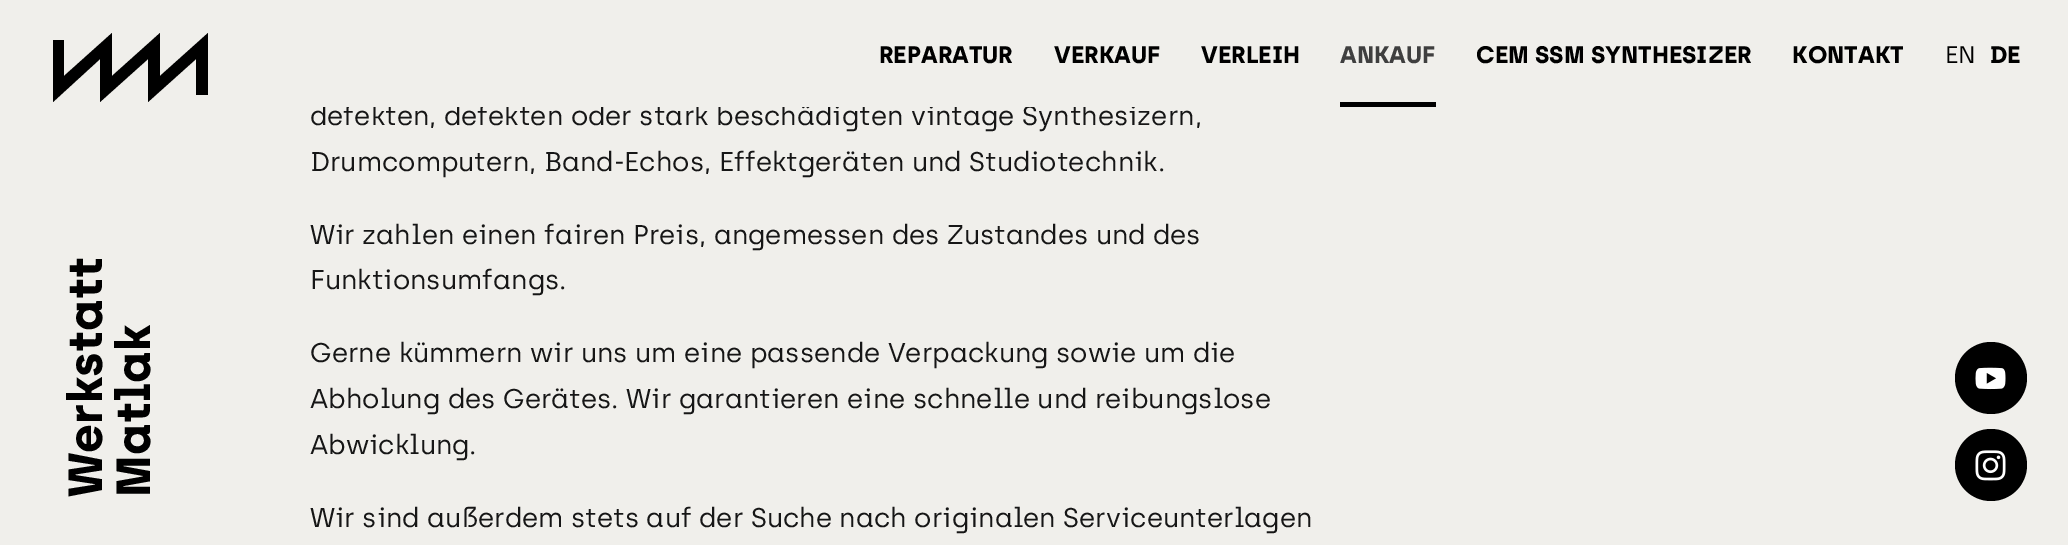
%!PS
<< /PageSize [2068 545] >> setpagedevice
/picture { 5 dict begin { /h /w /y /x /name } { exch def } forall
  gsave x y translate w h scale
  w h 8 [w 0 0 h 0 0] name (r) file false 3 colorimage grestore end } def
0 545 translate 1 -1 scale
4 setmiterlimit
0.941 0.937 0.922 setrgbcolor
0 0 2068 545 rectfill
/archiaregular-Regular [27 0 0 -27 0 0] selectfont
0.086 setgray
310 125 moveto (defekten, defekten oder stark beschädigten vintage Synthesizern,) show
0.941 0.937 0.922 setrgbcolor
323 104 813 3 rectfill
0 setgray
newpath 112 33 moveto 112 76 lineto 160 33 lineto 160 76 lineto 208 33 lineto 208 95 lineto 196 95 lineto 196 59 lineto 148 102 lineto 148 59 lineto 100 102 lineto 100 59 lineto 53 102 lineto 53 40 lineto 64 40 lineto 64 76 lineto closepath fill
/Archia-Bold [24 0 0 -24 0 0] selectfont
879 63 moveto (REPARATUR) show
1054 63 moveto (VERKAUF) show
1201 63 moveto (VERLEIH) show
1340 102 96 5 rectfill
0.247 setgray
1340 63 moveto (ANKAUF) show
0 setgray
1476 63 moveto (CEM SSM SYNTHESIZER) show
1792 63 moveto (KONTAKT) show
/archiaregular-Regular [24 0 0 -24 0 0] selectfont
1945 63 moveto (EN) show
/Archia-Bold [24 0 0 -24 0 0] selectfont
1990 63 moveto (DE) show
/Archia-Bold [48 0 0 -48 0 0] selectfont
gsave 102 497 translate -90 rotate 0 0 moveto (Werkstatt) show grestore
gsave 150 497 translate -90 rotate 0 0 moveto (Matlak) show grestore
newpath 1991 378 36 0 360 arc closepath fill
(img1.rgb) 1975 367 31 23 picture
newpath 1991 465 36 0 360 arc closepath fill
(img2.rgb) 1975 450 31 31 picture
/archiaregular-Regular [27 0 0 -27 0 0] selectfont
0.086 setgray
310 171 moveto (Drumcomputern, Band-Echos, Effektgeräten und Studiotechnik.) show
310 244 moveto (Wir zahlen einen fairen Preis, angemessen des Zustandes und des) show
310 289 moveto (Funktionsumfangs.) show
310 362 moveto (Gerne kümmern wir uns um eine passende Verpackung sowie um die) show
310 408 moveto (Abholung des Gerätes. Wir garantieren eine schnelle und reibungslose) show
310 454 moveto (Abwicklung.) show
310 527 moveto (Wir sind außerdem stets auf der Suche nach originalen Serviceunterlagen) show
showpage
